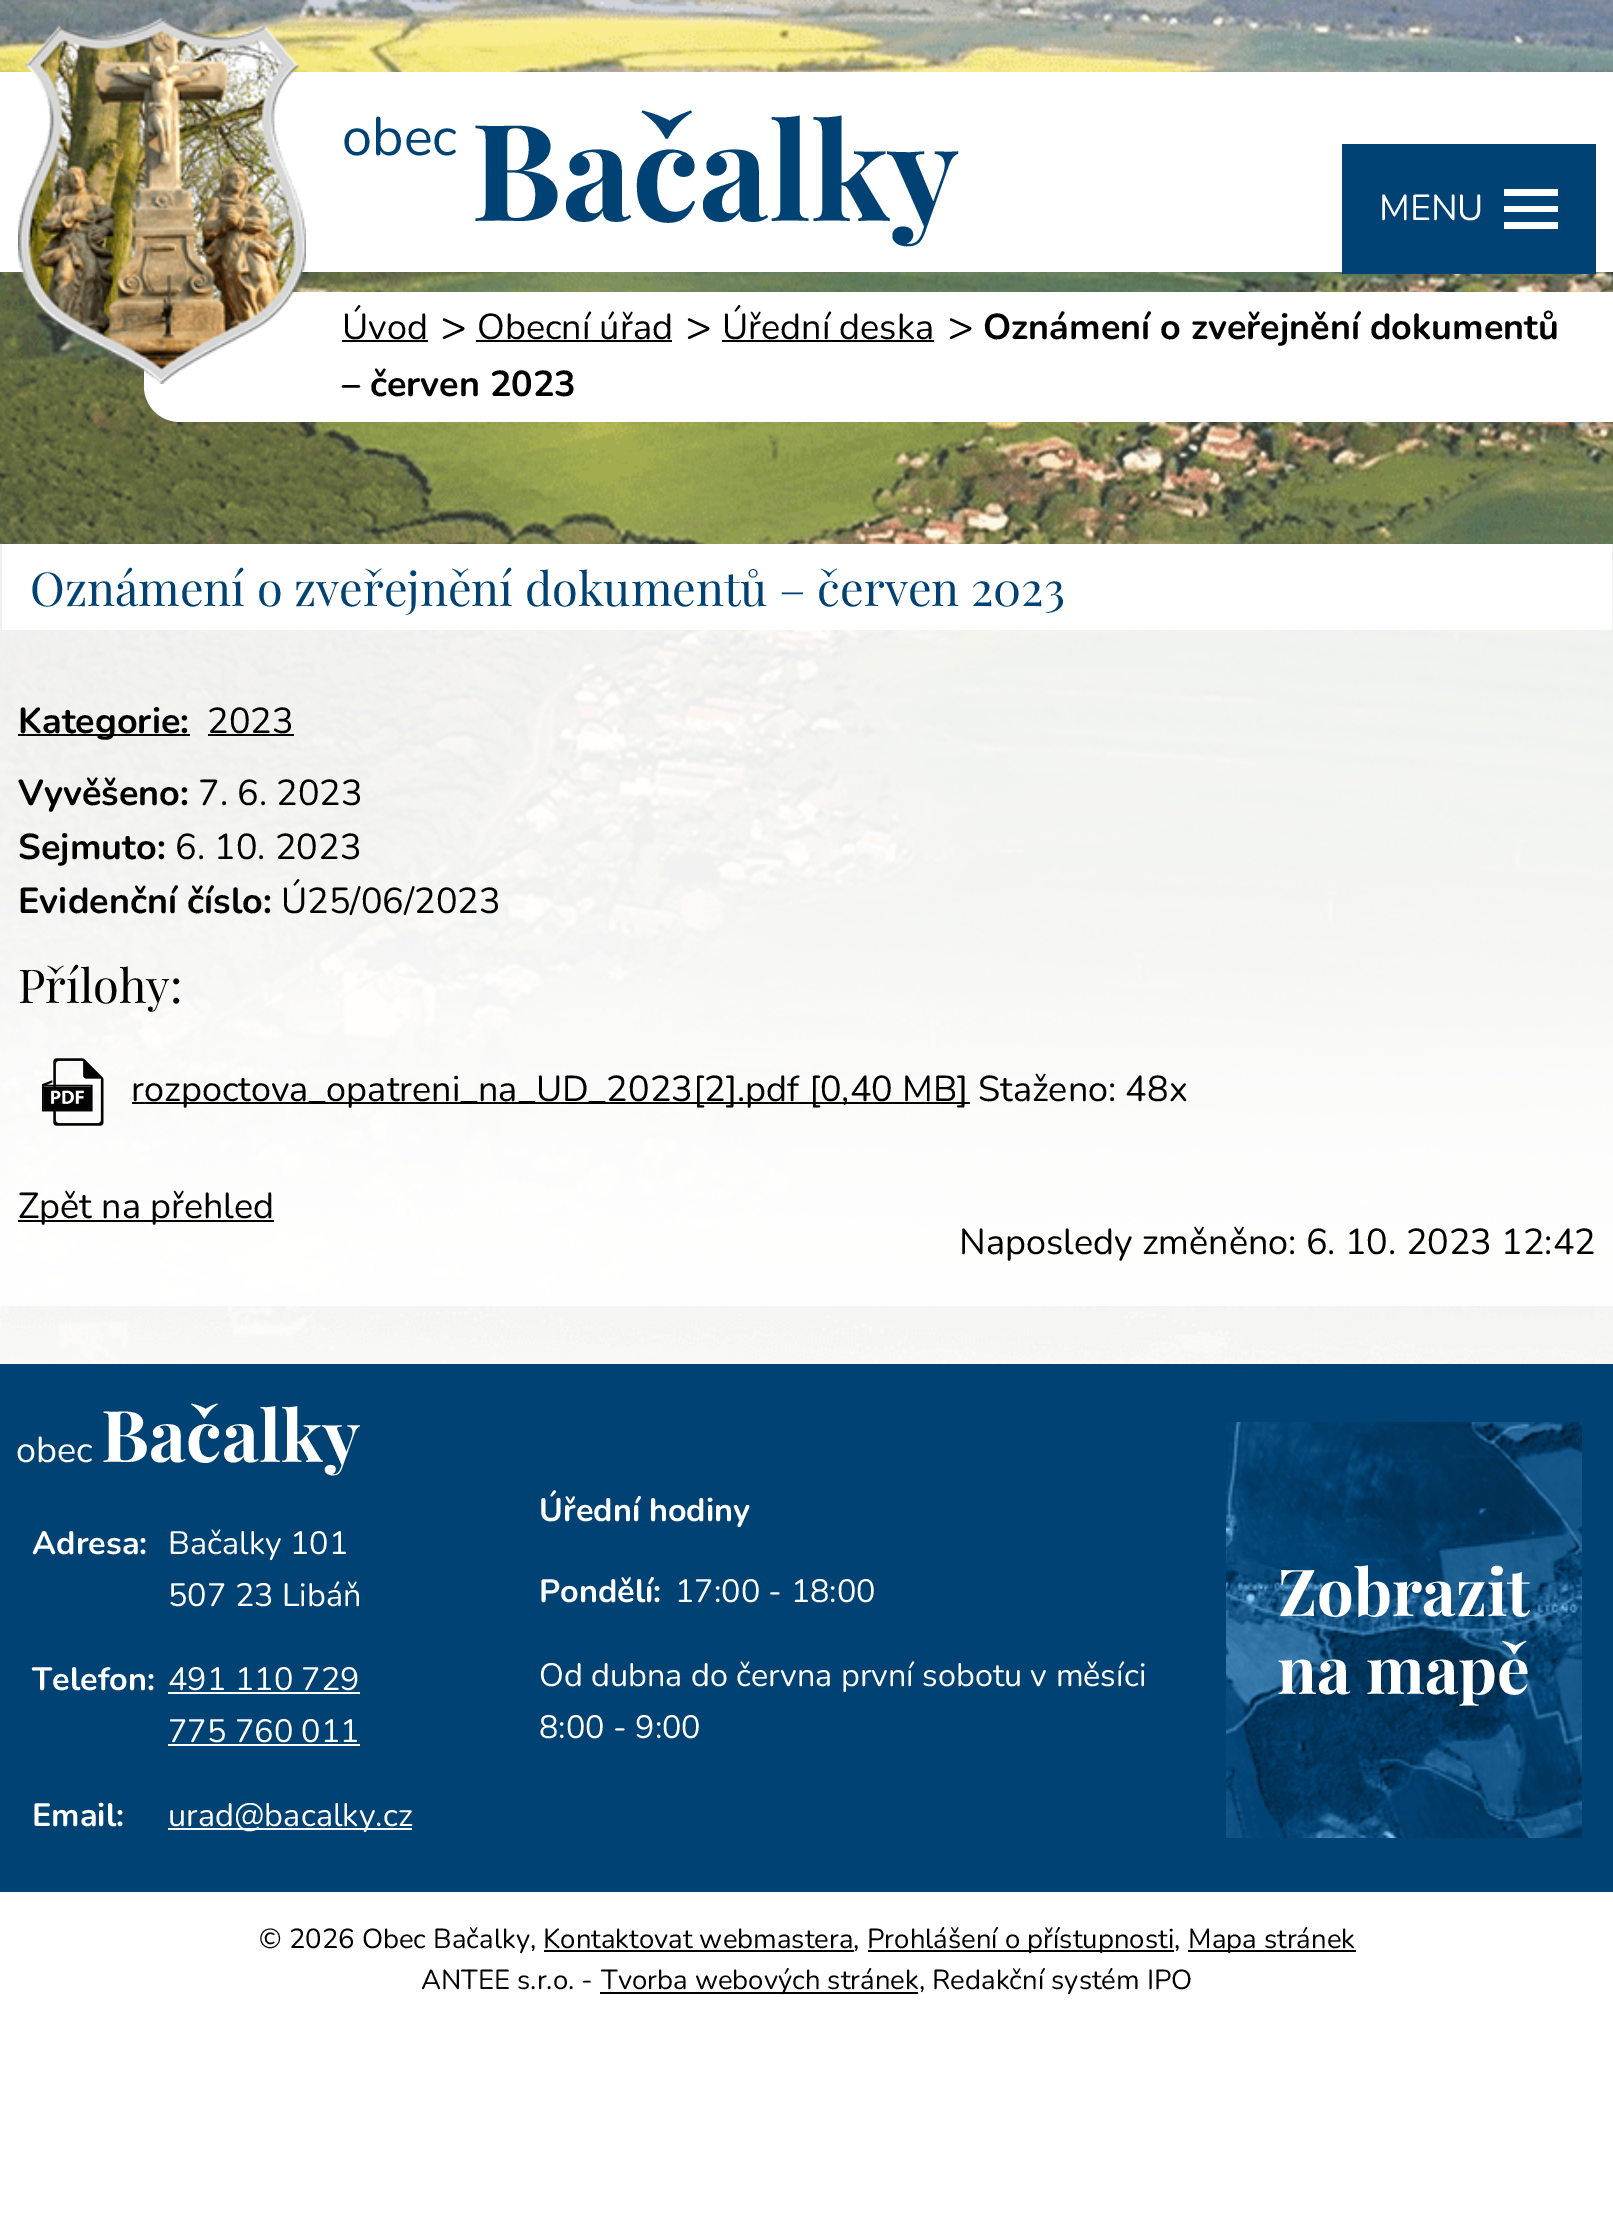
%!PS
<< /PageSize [1613 2213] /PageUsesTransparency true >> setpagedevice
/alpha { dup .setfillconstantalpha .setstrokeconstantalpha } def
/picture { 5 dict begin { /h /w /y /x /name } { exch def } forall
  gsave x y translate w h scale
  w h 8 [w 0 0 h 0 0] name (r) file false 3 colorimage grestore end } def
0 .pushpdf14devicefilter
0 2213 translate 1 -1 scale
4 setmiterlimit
1 setgray
0 0 1613 2213 rectfill
(img1.rgb) 0 0 1613 1364 picture
0 72 1613 200 rectfill
newpath 144 292 moveto 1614 292 lineto 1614 422 lineto 180 422 lineto 160 422 144 406 144 386 curveto closepath fill
(img2.rgb) 18 18 288 366 picture
/Nunito-Regular [54 0 0 -54 0 0] selectfont
0 0.259 0.451 setrgbcolor
342 155 moveto (obec) show
/PlayfairDisplay-Bold [135 0 0 -135 0 0] selectfont
471 221 moveto (Bačalky) show
1342 144 254 130 rectfill
/Nunito-Regular [36 0 0 -36 0 0] selectfont
1 setgray
1379 220 moveto (MENU) show
newpath 1504 229 moveto 1504 222 lineto 1558 222 lineto 1558 229 lineto closepath 1504 189 moveto 1558 189 lineto 1558 196 lineto 1504 196 lineto closepath 1504 212 moveto 1504 206 lineto 1558 206 lineto 1558 212 lineto closepath fill
0.9 alpha
0 544 1613 762 rectfill
1 alpha
0 setgray
342 339 moveto (Úvod) show
342 340 86 2 rectfill
/Nunito-Regular [43 0 0 -43 0 0] selectfont
441 341 moveto (>) show
/Nunito-Regular [36 0 0 -36 0 0] selectfont
477 339 moveto (Obecní úřad) show
476 340 196 2 rectfill
/Nunito-Regular [43 0 0 -43 0 0] selectfont
686 341 moveto (>) show
/Nunito-Regular [36 0 0 -36 0 0] selectfont
722 339 moveto (Úřední deska) show
722 340 212 2 rectfill
/Nunito-Regular [43 0 0 -43 0 0] selectfont
948 341 moveto (>) show
/Nunito-Bold [36 0 0 -36 0 0] selectfont
983 339 moveto (Oznámení o zveřejnění dokumentů) show
342 396 moveto (– červen 2023) show
1 setgray
2 544 1610 86 rectfill
/PlayfairDisplay-Regular [46.8 0 0 -46.8 0 0] selectfont
0 0.259 0.451 setrgbcolor
30 606 moveto (Oznámení o zveřejnění dokumentů – červen 2023) show
0 setgray
18 734 172 2 rectfill
/Nunito-Bold [36 0 0 -36 0 0] selectfont
18 733 moveto (Kategorie:) show
/Nunito-Regular [36 0 0 -36 0 0] selectfont
207 733 moveto (2023) show
208 734 86 2 rectfill
/Nunito-Bold [36 0 0 -36 0 0] selectfont
18 805 moveto (Vyvěšeno:) show
/Nunito-Regular [36 0 0 -36 0 0] selectfont
198 805 moveto (7. 6. 2023) show
/Nunito-Bold [36 0 0 -36 0 0] selectfont
18 859 moveto (Sejmuto:) show
/Nunito-Regular [36 0 0 -36 0 0] selectfont
175 859 moveto (6. 10. 2023) show
/Nunito-Bold [36 0 0 -36 0 0] selectfont
18 913 moveto (Evidenční číslo:) show
/Nunito-Regular [36 0 0 -36 0 0] selectfont
281 913 moveto (Ú25/06/2023) show
/PlayfairDisplay-Regular [46.8 0 0 -46.8 0 0] selectfont
18 1003 moveto (Přílohy:) show
(img3.rgb) 42 1058 62 68 picture
132 1102 838 2 rectfill
/Nunito-Regular [36 0 0 -36 0 0] selectfont
131 1101 moveto (rozpoctova_opatreni_na_UD_2023[2].pdf [0,40 MB] Staženo: 48x) show
18 1220 256 2 rectfill
18 1218 moveto (Zpět na přehled) show
959 1254 moveto (Naposledy změněno: 6. 10. 2023 12:42) show
0 0.259 0.451 setrgbcolor
0 1364 1613 528 rectfill
1 setgray
16 1462 moveto (obec) show
/PlayfairDisplay-Bold [71.5 0 0 -71.5 0 0] selectfont
101 1462 moveto (Bačalky) show
/Nunito-Bold [32.4 0 0 -32.4 0 0] selectfont
32 1554 moveto (Adresa:) show
/Nunito-Regular [32.4 0 0 -32.4 0 0] selectfont
168 1554 moveto (Bačalky 101) show
168 1606 moveto (507 23 Libáň) show
/Nunito-Bold [32.4 0 0 -32.4 0 0] selectfont
32 1690 moveto (Telefon:) show
/Nunito-Regular [32.4 0 0 -32.4 0 0] selectfont
168 1690 moveto (491 110 729) show
168 1692 192 2 rectfill
168 1742 moveto (775 760 011) show
168 1744 192 2 rectfill
/Nunito-Bold [32.4 0 0 -32.4 0 0] selectfont
32 1826 moveto (Email:) show
168 1828 244 2 rectfill
/Nunito-Regular [32.4 0 0 -32.4 0 0] selectfont
168 1826 moveto (urad@bacalky.cz) show
/Nunito-Bold [32.4 0 0 -32.4 0 0] selectfont
539 1521 moveto (Úřední hodiny) show
539 1602 moveto (Pondělí:) show
/Nunito-Regular [32.4 0 0 -32.4 0 0] selectfont
675 1602 moveto (17:00 - 18:00) show
539 1686 moveto (Od dubna do června první sobotu v měsíci) show
539 1738 moveto (8:00 - 9:00) show
(img4.rgb) 1226 1422 356 416 picture
/PlayfairDisplay-Bold [65 0 0 -65 0 0] selectfont
1278 1616 moveto (Zobrazit) show
1277 1694 moveto (na mapě) show
/Nunito-Regular [27.5 0 0 -27.5 0 0] selectfont
0 setgray
259 1948 moveto (© 2026 Obec Bačalky, Kontaktovat webmastera,) show
868 1950 306 2 rectfill
867 1948 moveto (Prohlášení o přístupnosti,) show
1188 1950 168 2 rectfill
1188 1948 moveto (Mapa stránek) show
544 1950 310 2 rectfill
421 1989 moveto (ANTEE s.r.o. -) show
600 1992 318 2 rectfill
601 1989 moveto (Tvorba webových stránek, Redakční systém IPO) show
.poppdf14devicefilter showpage
